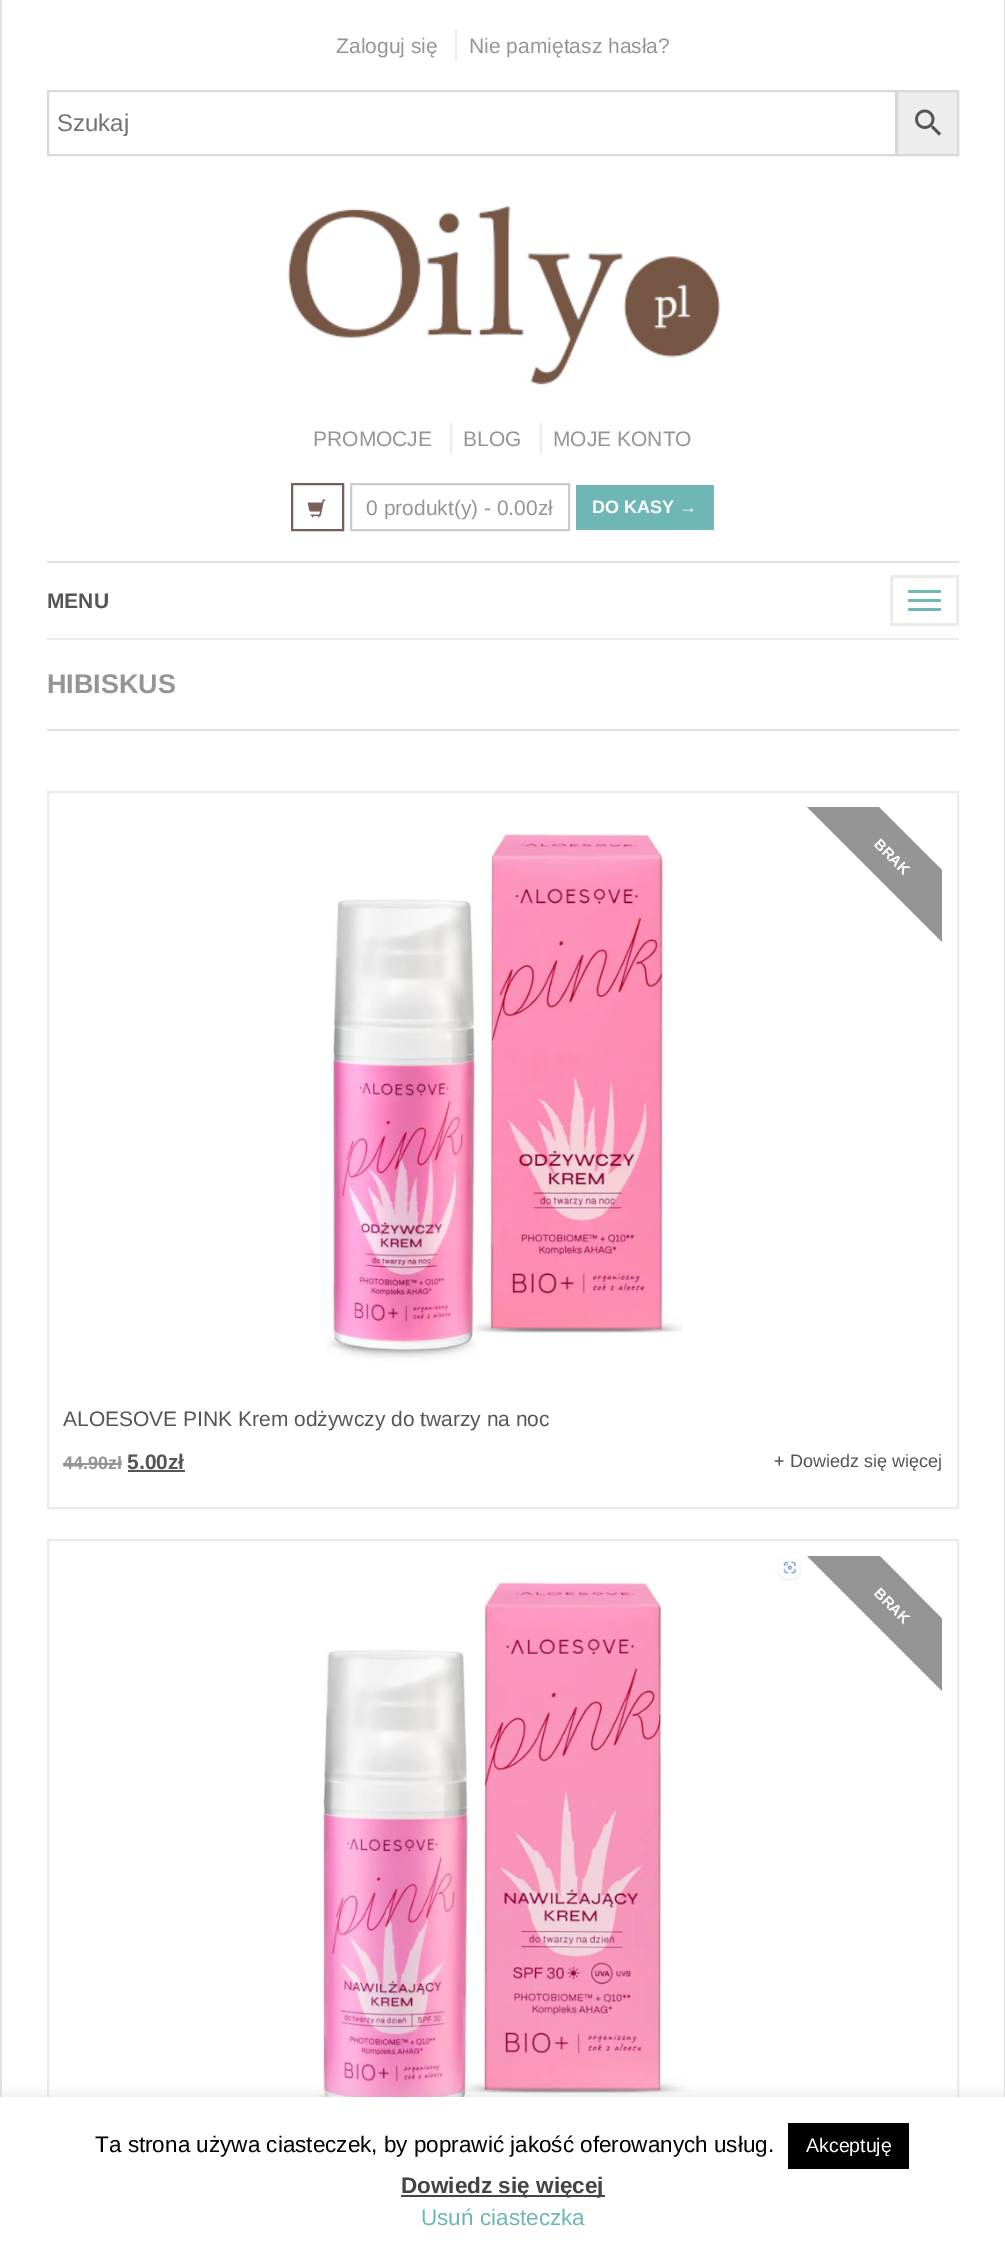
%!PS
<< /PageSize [1005 2249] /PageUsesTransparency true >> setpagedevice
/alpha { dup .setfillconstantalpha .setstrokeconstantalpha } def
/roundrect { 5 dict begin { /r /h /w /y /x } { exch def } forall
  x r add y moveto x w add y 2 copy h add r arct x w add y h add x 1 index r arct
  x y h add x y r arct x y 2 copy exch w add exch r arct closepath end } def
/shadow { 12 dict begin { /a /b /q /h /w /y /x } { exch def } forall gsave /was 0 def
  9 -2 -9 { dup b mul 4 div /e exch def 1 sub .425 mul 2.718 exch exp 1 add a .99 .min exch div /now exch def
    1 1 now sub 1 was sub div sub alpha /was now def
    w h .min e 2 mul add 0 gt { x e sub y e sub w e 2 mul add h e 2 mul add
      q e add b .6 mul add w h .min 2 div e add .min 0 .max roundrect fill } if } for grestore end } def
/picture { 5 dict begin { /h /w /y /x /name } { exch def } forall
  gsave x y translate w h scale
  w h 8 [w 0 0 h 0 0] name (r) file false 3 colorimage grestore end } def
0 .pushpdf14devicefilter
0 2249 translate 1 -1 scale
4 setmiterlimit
1 setgray
0 0 1005 2249 rectfill
0.882 setgray
1004 0 1 2097 rectfill
0 0 2 2097 rectfill
/LiberationSans-Regular [21 0 0 -21 0 0] selectfont
0.584 setgray
336 53 moveto (Zaloguj się) show
0.922 setgray
455 30 2 30 rectfill
0.584 setgray
469 53 moveto (Nie pamiętasz hasła?) show
0.929 setgray
newpath 897 91 moveto 958 91 lineto 958 155 lineto 897 155 lineto closepath gsave fill grestore
0.847 setgray
2 setlinewidth
stroke
48 91 848 64 rectstroke
/LiberationSans-Regular [24 0 0 -24 0 0] selectfont
0.459 setgray
57 131 moveto (Szukaj) show
(img1.rgb) 915 109 27 27 picture
(img2.rgb) 287 205 434 180 picture
/LiberationSans-Regular [21 0 0 -21 0 0] selectfont
0.584 setgray
313 446 moveto (PROMOCJE) show
0.922 setgray
450 423 2 30 rectfill
0.584 setgray
463 446 moveto (BLOG) show
0.922 setgray
540 423 2 30 rectfill
0.584 setgray
553 446 moveto (MOJE KONTO) show
0.478 0.369 0.353 setrgbcolor
292 484 51 46 rectstroke
(img3.rgb) 307 499 19 19 picture
0.8 setgray
351 484 218 46 rectstroke
0.584 setgray
366 515 moveto (0 produkt\(y\) - 0.00zł) show
0.431 0.718 0.714 setrgbcolor
576 485 138 45 rectfill
/LiberationSans-Bold [18 0 0 -18 0 0] selectfont
1 setgray
592 513 moveto (DO KASY →) show
0.882 setgray
47 561 912 2 rectfill
/LiberationSans-Bold [21 0 0 -21 0 0] selectfont
0.333 setgray
47 608 moveto (MENU) show
0.922 setgray
3 setlinewidth
891.5 576.5 66 48 rectstroke
0.431 0.718 0.714 setrgbcolor
908 590 33 3 1.5 roundrect fill
908 599 33 3 1.5 roundrect fill
908 608 33 3 1.5 roundrect fill
0.922 setgray
47 638 912 2 rectfill
/LiberationSans-Bold [27 0 0 -27 0 0] selectfont
0.584 setgray
47 693 moveto (HIBISKUS) show
0.882 setgray
47 729 912 2 rectfill
0.922 setgray
2 setlinewidth
48 792 910 716 rectstroke
(img4.rgb) 326 833 357 528 picture
gsave
63 807 879 587 rectclip
0.584 setgray
newpath 843 771 moveto 978 906 lineto 942 942 lineto 807 807 lineto closepath fill
grestore
/LiberationSans-Bold [15 0 0 -15 0 0] selectfont
1 setgray
gsave 873 845 translate 45 rotate 0 0 moveto (BRAK) show grestore
/LiberationSans-Regular [21 0 0 -21 0 0] selectfont
0.333 setgray
63 1426 moveto (ALOESOVE PINK Krem odżywczy do twarzy na noc) show
/LiberationSans-Bold [18 0 0 -18 0 0] selectfont
0.584 setgray
63 1469 moveto (44.90zł) show
63 1463 59 2 rectfill
/LiberationSans-Bold [21 0 0 -21 0 0] selectfont
0.333 setgray
127 1469 moveto (5.00zł) show
128 1470 57 2 rectfill
/LiberationSans-Regular [18 0 0 -18 0 0] selectfont
774 1467 moveto (+ Dowiedz się więcej) show
0.922 setgray
48 1540 910 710 rectstroke
(img5.rgb) 316 1556 486 541 picture
gsave
63 1556 879 586 rectclip
0.584 setgray
newpath 843 1519 moveto 978 1655 lineto 942 1691 lineto 807 1556 lineto closepath fill
grestore
/LiberationSans-Bold [15 0 0 -15 0 0] selectfont
1 setgray
gsave 873 1594 translate 45 rotate 0 0 moveto (BRAK) show grestore
0.675 0.671 0.671 setrgbcolor
0 2096 1005 153 0 7.5 0.3 shadow
1 setgray
0 2097 1005 152 rectfill
/LiberationSans-Regular [22.5 0 0 -22.5 0 0] selectfont
0 setgray
95 2152 moveto (Ta strona używa ciasteczek, by poprawić jakość oferowanych usług.) show
788 2123 121 46 rectfill
/LiberationSans-Regular [19.5 0 0 -19.5 0 0] selectfont
1 setgray
806 2152 moveto (Akceptuję) show
0.267 setgray
401 2195 204 2 rectfill
/LiberationSans-Bold [22.5 0 0 -22.5 0 0] selectfont
401 2193 moveto (Dowiedz się więcej) show
/LiberationSans-Regular [22.5 0 0 -22.5 0 0] selectfont
0.431 0.718 0.714 setrgbcolor
421 2225 moveto (Usuń ciasteczka) show
.poppdf14devicefilter showpage
